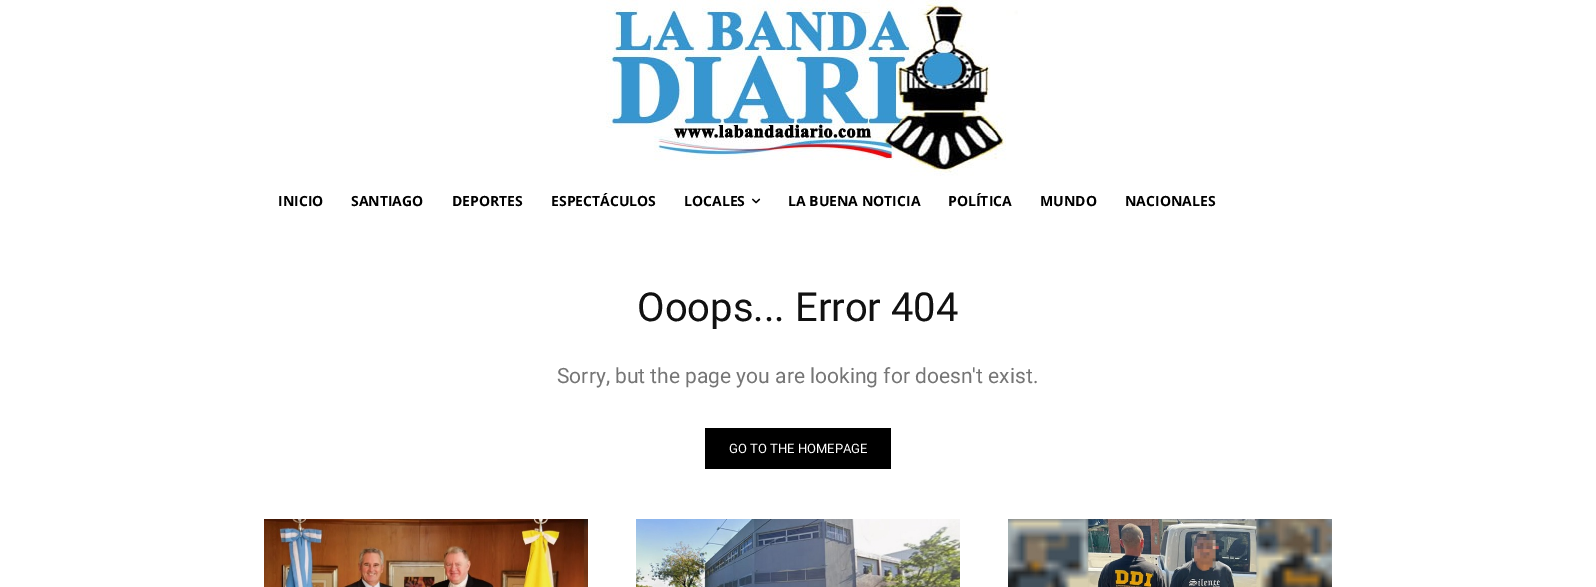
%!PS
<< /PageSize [1596 587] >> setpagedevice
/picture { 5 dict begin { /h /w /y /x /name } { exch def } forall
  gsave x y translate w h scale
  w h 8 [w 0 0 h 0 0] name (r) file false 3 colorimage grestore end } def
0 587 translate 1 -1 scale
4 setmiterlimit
1 setgray
0 0 1596 587 rectfill
(img1.rgb) 606 0 412 176 picture
/OpenSans-Bold [14 0 0 -14 0 0] selectfont
0 setgray
278 206 moveto (INICIO) show
351 206 moveto (SANTIAGO) show
452 206 moveto (DEPORTES) show
551 206 moveto (ESPECTÁCULOS) show
684 206 moveto (LOCALES) show
(img2.rgb) 752 198 9 6 picture
788 206 moveto (LA BUENA NOTICIA) show
948 206 moveto (POLÍTICA) show
1040 206 moveto (MUNDO) show
1125 206 moveto (NACIONALES) show
/Roboto-Regular [40 0 0 -40 0 0] selectfont
0.067 setgray
637 321 moveto (Ooops... Error 404) show
/Roboto-Regular [21 0 0 -21 0 0] selectfont
0.459 setgray
557 383 moveto (Sorry, but the page you are looking for doesn't exist.) show
0 setgray
705 428 186 41 rectfill
/Roboto-Regular [13 0 0 -13 0 0] selectfont
1 setgray
729 453 moveto (GO TO THE HOMEPAGE) show
(img3.rgb) 264 519 324 68 picture
(img4.rgb) 636 519 324 68 picture
(img5.rgb) 1008 519 324 68 picture
showpage
